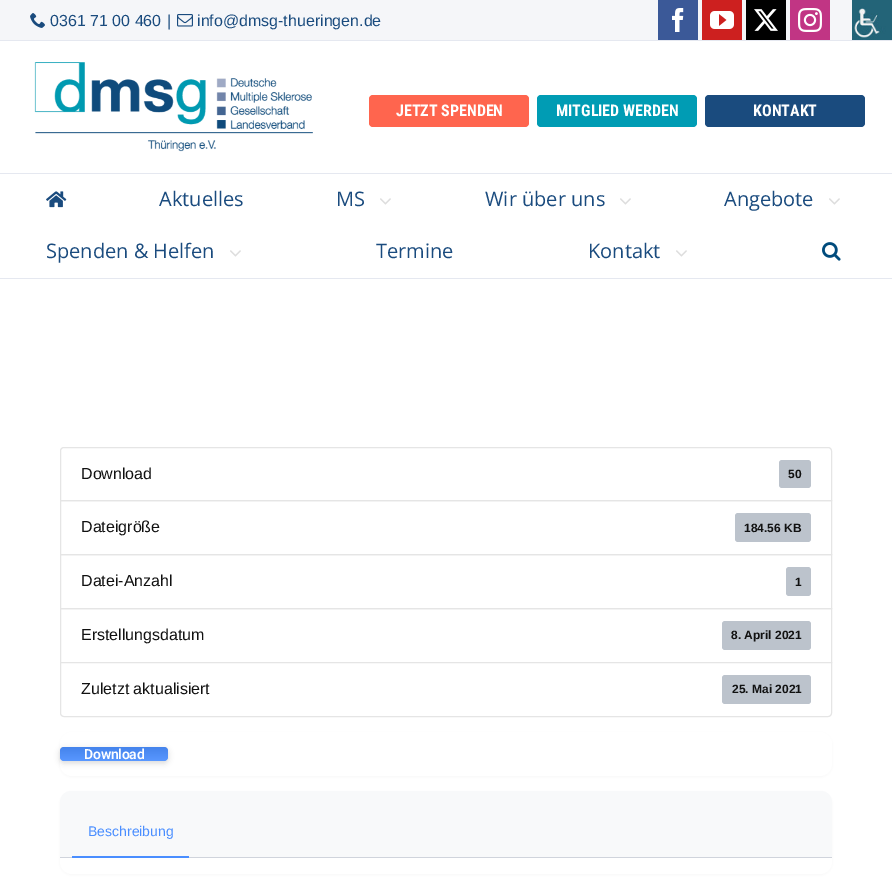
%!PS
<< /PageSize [892 894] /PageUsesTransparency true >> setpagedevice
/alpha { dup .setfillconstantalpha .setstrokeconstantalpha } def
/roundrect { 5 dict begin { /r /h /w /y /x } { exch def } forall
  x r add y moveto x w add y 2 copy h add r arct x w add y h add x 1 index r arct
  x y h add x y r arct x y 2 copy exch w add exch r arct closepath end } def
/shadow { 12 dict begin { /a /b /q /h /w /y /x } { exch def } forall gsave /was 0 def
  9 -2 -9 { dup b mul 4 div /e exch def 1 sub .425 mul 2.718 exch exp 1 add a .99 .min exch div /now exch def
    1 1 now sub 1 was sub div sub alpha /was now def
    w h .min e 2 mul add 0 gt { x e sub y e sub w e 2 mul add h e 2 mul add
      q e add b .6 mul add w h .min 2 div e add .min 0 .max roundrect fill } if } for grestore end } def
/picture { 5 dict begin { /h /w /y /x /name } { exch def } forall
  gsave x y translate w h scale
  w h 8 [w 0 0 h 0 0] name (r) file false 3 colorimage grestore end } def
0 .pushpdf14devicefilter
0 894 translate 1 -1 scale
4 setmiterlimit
1 setgray
0 0 892 894 rectfill
0.961 0.965 0.976 setrgbcolor
0 0 852 40 rectfill
0.898 0.91 0.941 setrgbcolor
0 40 892 1 rectfill
(img1.rgb) 30 13 15 15 picture
/LiberationSans-Regular [16 0 0 -16 0 0] selectfont
0.102 0.294 0.494 setrgbcolor
50 26 moveto (0361 71 00 460) show
167 26 moveto (|) show
(img2.rgb) 177 14 16 13 picture
197 26 moveto (info@dmsg-thueringen.de) show
0.231 0.349 0.596 setrgbcolor
658 0 40 40 rectfill
(img3.rgb) 672 8 12 24 picture
0.804 0.125 0.122 setrgbcolor
702 0 40 40 rectfill
(img4.rgb) 710 11 24 18 picture
0 setgray
746 0 40 40 rectfill
(img5.rgb) 754 9 24 22 picture
0.757 0.208 0.518 setrgbcolor
790 0 40 40 rectfill
(img6.rgb) 798 8 24 24 picture
(img7.rgb) 34 62 279 90 picture
1 0.396 0.306 setrgbcolor
369 95 160 32 4 roundrect fill
/RobotoCondensed-Bold [16 0 0 -16 0 0] selectfont
1 setgray
396 116 moveto (JETZT SPENDEN) show
0 0.612 0.706 setrgbcolor
537 95 160 32 4 roundrect fill
1 setgray
556 116 moveto (MITGLIED WERDEN) show
0.102 0.294 0.494 setrgbcolor
705 95 160 32 4 roundrect fill
1 setgray
753 116 moveto (KONTAKT) show
0.898 0.91 0.941 setrgbcolor
0 173 892 1 rectfill
0 278 892 1 rectfill
(img8.rgb) 46 191 21 17 picture
/OpenSans-Regular [20 0 0 -20 0 0] selectfont
0.102 0.294 0.494 setrgbcolor
159 206 moveto (Aktuelles) show
336 206 moveto (MS) show
(img9.rgb) 380 198 11 7 picture
485 206 moveto (Wir über uns) show
(img9.rgb) 620 198 11 7 picture
724 206 moveto (Angebote) show
(img9.rgb) 829 198 11 7 picture
46 258 moveto (Spenden & Helfen) show
(img9.rgb) 230 250 11 7 picture
376 258 moveto (Termine) show
588 258 moveto (Kontakt) show
(img9.rgb) 676 250 11 7 picture
(img10.rgb) 822 242 19 19 picture
0.898 setgray
newpath 64 447.5 moveto 828 447.5 lineto 830 447.5 831.5 449 831.5 451 curveto 831.5 500.5 lineto 60.5 500.5 lineto 60.5 451 lineto 60.5 449 62 447.5 64 447.5 curveto closepath stroke
/LiberationSans-Regular [16 0 0 -16 0 0] selectfont
0.067 setgray
81 479 moveto (Download) show
0.737 0.765 0.8 setrgbcolor
779 460 32 28 3 roundrect fill
/LiberationSans-Bold [12 0 0 -12 0 0] selectfont
0.067 setgray
788 478 moveto (50) show
0.898 setgray
60.5 500.5 771 54 rectstroke
/LiberationSans-Regular [16 0 0 -16 0 0] selectfont
0.067 setgray
81 532 moveto (Dateigröße) show
0.737 0.765 0.8 setrgbcolor
735 513 76 29 3 roundrect fill
/LiberationSans-Bold [12 0 0 -12 0 0] selectfont
0.067 setgray
744 532 moveto (184.56 KB) show
0.898 setgray
60.5 554.5 771 54 rectstroke
/LiberationSans-Regular [16 0 0 -16 0 0] selectfont
0.067 setgray
81 586 moveto (Datei-Anzahl) show
0.737 0.765 0.8 setrgbcolor
786 567 25 29 3 roundrect fill
/LiberationSans-Bold [12 0 0 -12 0 0] selectfont
0.067 setgray
795 586 moveto (1) show
0.898 setgray
60.5 608.5 771 54 rectstroke
/LiberationSans-Regular [16 0 0 -16 0 0] selectfont
0.067 setgray
81 640 moveto (Erstellungsdatum) show
0.737 0.765 0.8 setrgbcolor
722 621 89 29 3 roundrect fill
/LiberationSans-Bold [12 0 0 -12 0 0] selectfont
0.067 setgray
731 639 moveto (8. April 2021) show
1 setgray
newpath 60.5 662.5 moveto 831.5 662.5 lineto 831.5 713 lineto 831.5 715 830 716.5 828 716.5 curveto 64 716.5 lineto 62 716.5 60.5 715 60.5 713 curveto closepath gsave fill grestore
0.898 setgray
stroke
/LiberationSans-Regular [16 0 0 -16 0 0] selectfont
0.067 setgray
81 694 moveto (Zuletzt aktualisiert) show
0.737 0.765 0.8 setrgbcolor
722 675 89 29 3 roundrect fill
/LiberationSans-Bold [12 0 0 -12 0 0] selectfont
0.067 setgray
732 693 moveto (25. Mai 2021) show
0 setgray
60 733 772 44 12 1.5 0.04 shadow
1 setgray
60 732 772 44 12 roundrect fill
0 setgray
60 749 108 14 4 3 0.15 shadow
0.29 0.557 1 setrgbcolor
60 747 108 14 4 roundrect fill
0.08 alpha
gsave 60 747 108 14 4 roundrect clip newpath
<< /ShadingType 2 /ColorSpace /DeviceRGB /Coords [114 747 114 761] /Extend [true true] /Function << /FunctionType 2 /Domain [0 1] /C0 [0 0 0] /C1 [1 1 1] /N 1 >> >> shfill grestore
/Roboto-SemiBold [14 0 0 -14 0 0] selectfont
1 alpha
1 setgray
84 759 moveto -0.25 0 (Download) ashow
0 setgray
60 792 772 83 12 1.5 0.04 shadow
1 setgray
60 791 772 83 12 roundrect fill
0.973 0.976 0.98 setrgbcolor
newpath 71 791 moveto 821 791 lineto 827 791 832 796 832 802 curveto 832 858 lineto 60 858 lineto 60 802 lineto 60 796 65 791 71 791 curveto closepath fill
0.816 0.831 0.863 setrgbcolor
60 857 772 1 rectfill
/LiberationSans-Regular [14 0 0 -14 0 0] selectfont
0.29 0.557 1 setrgbcolor
88 836 moveto (Beschreibung) show
72 856 117 2 rectfill
(img11.rgb) 852 0 40 40 picture
.poppdf14devicefilter showpage
